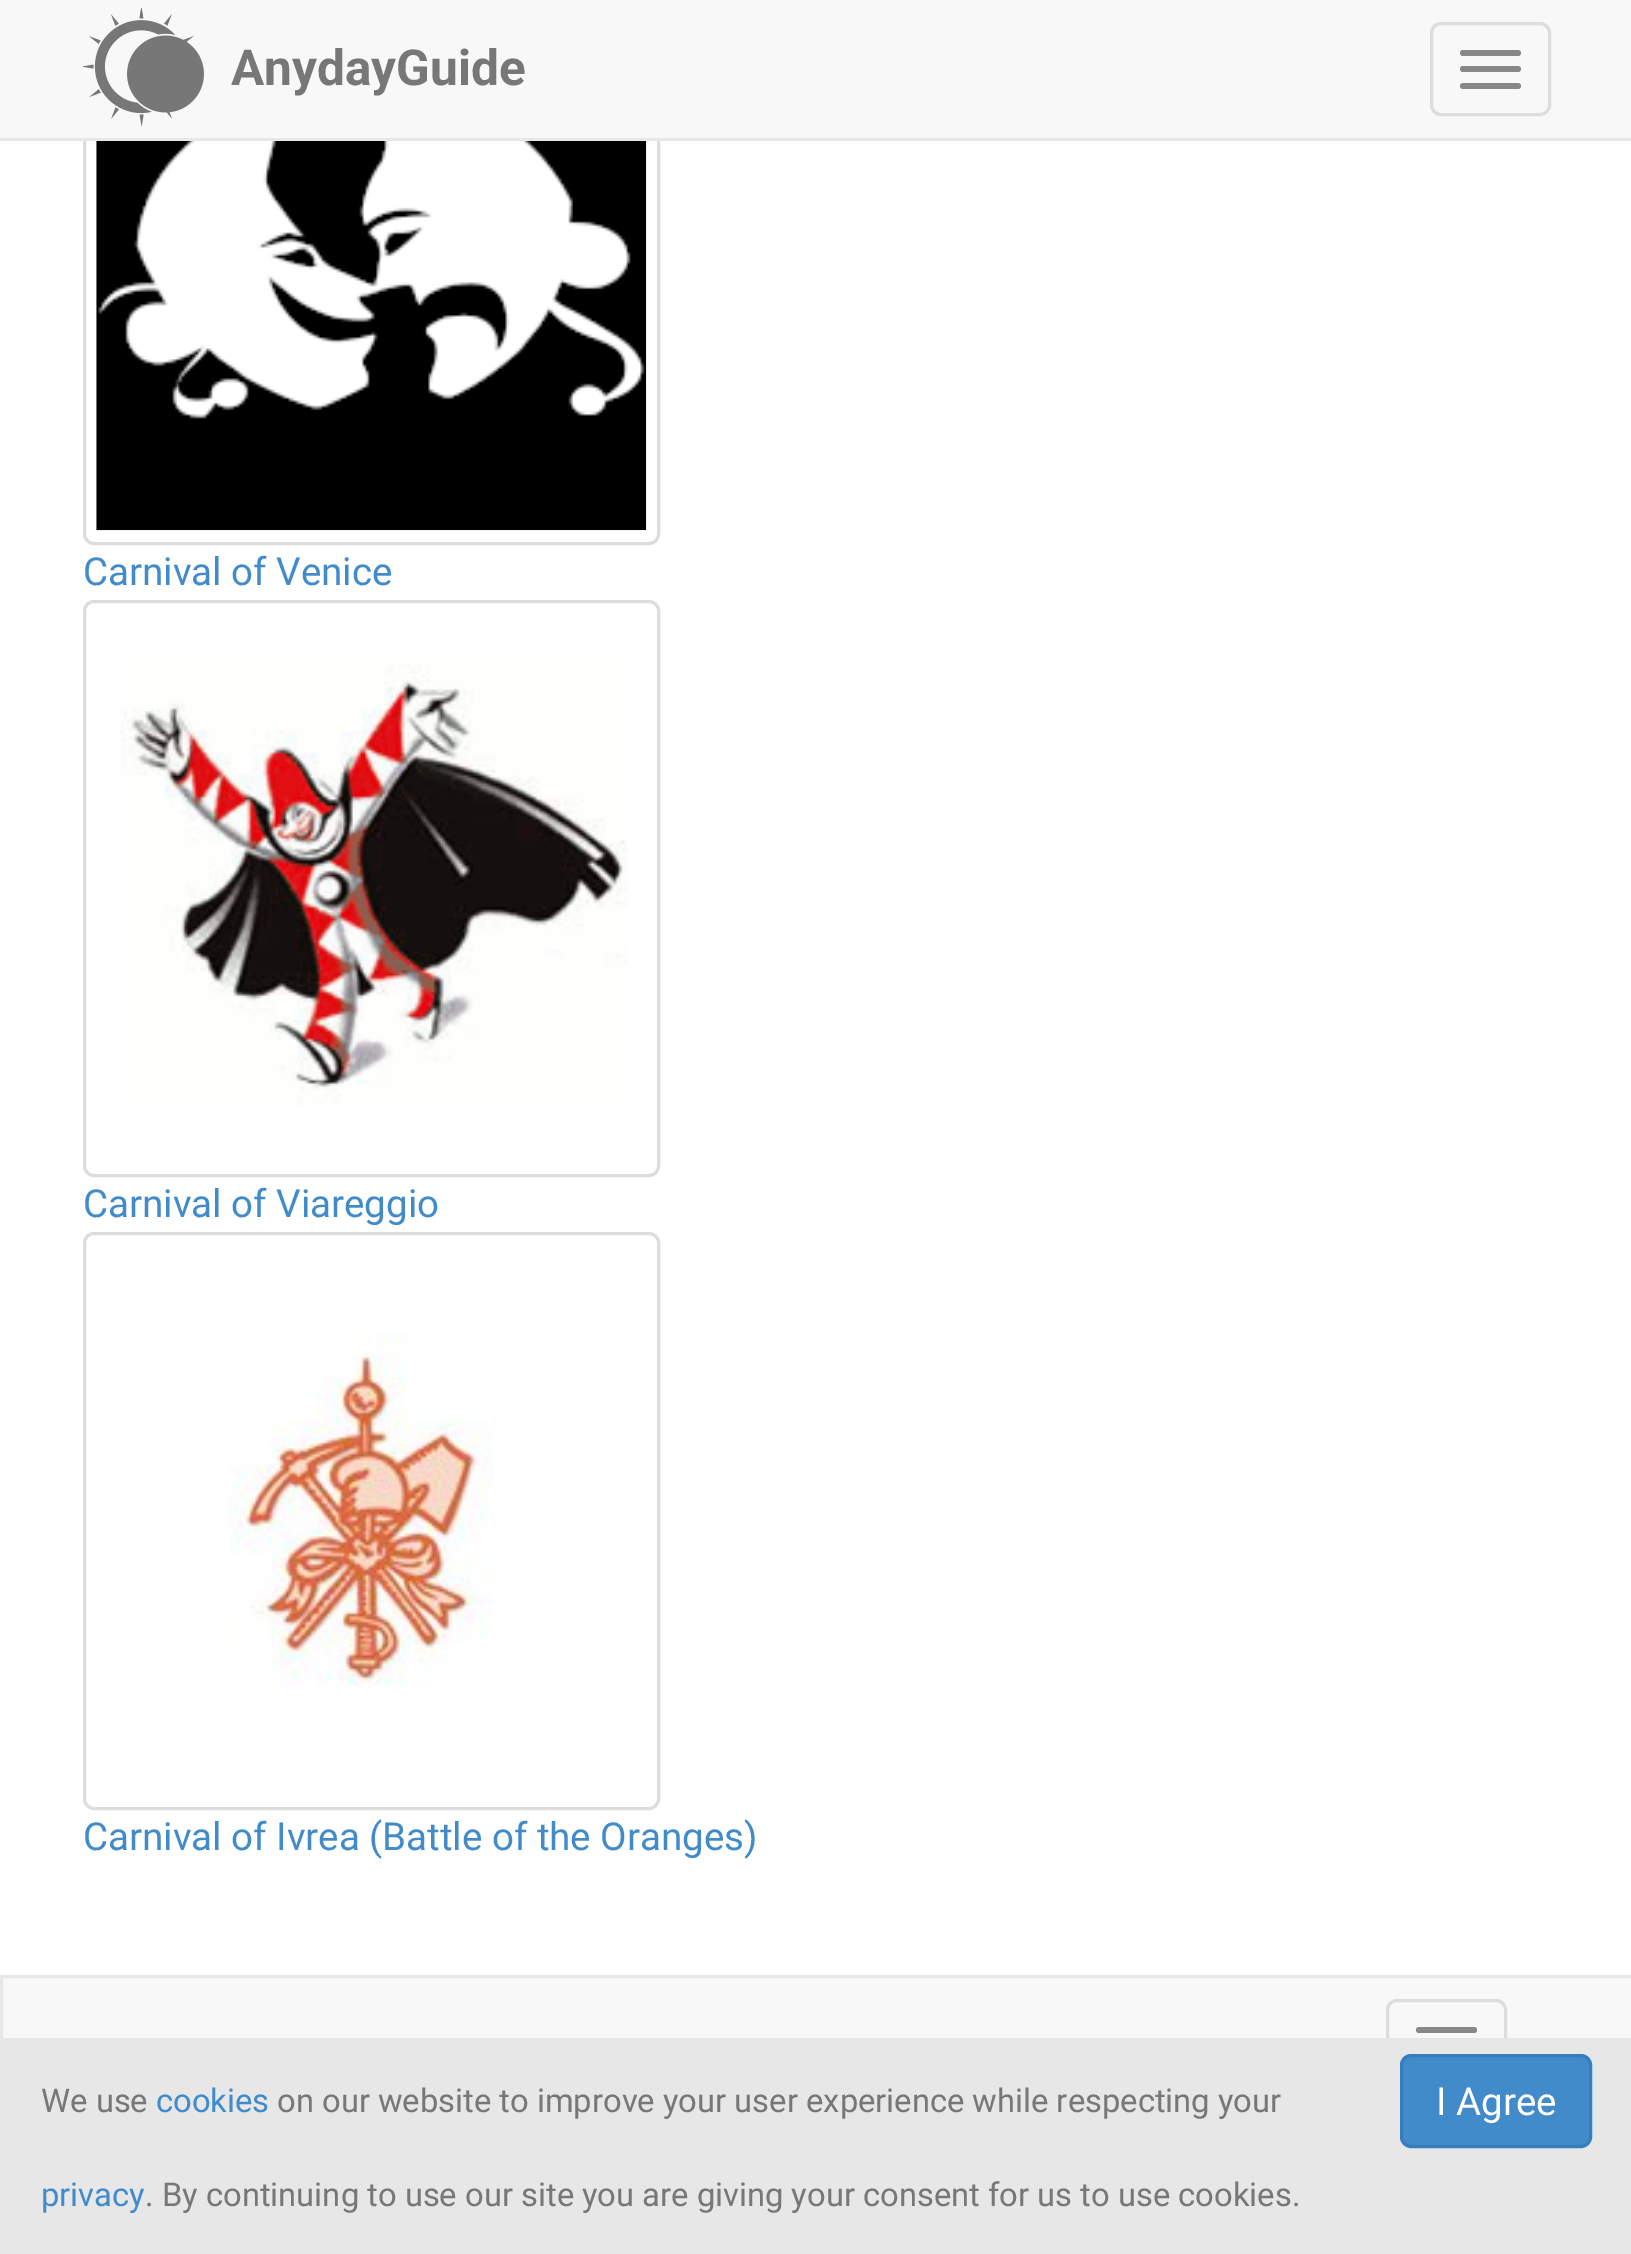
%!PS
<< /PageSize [1631 2254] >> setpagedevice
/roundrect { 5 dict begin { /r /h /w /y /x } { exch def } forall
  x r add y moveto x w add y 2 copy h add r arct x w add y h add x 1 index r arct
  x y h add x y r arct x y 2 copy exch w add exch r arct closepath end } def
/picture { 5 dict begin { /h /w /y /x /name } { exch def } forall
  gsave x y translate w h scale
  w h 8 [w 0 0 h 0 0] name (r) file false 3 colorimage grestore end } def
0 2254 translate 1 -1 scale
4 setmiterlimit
1 setgray
0 0 1631 2254 rectfill
0.867 setgray
3 setlinewidth
84.5 -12.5 574 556 9.5 roundrect stroke
0.973 setgray
0 0 1631 138 rectfill
0.906 setgray
0 138 1631 3 rectfill
(img1.rgb) 83 8 121 119 picture
/Roboto-Bold [49.5 0 0 -49.5 0 0] selectfont
0.467 setgray
231 85 moveto (AnydayGuide) show
0.867 setgray
1431.5 23.5 118 91 9.5 roundrect stroke
0.533 setgray
1460 50 61 6 3 roundrect fill
1460 66 61 6 3 roundrect fill
1460 83 61 6 3 roundrect fill
(img2.rgb) 96 141 551 390 picture
/Roboto-Regular [38.5 0 0 -38.5 0 0] selectfont
0.259 0.545 0.792 setrgbcolor
83 585 moveto (Carnival of Venice) show
0.867 setgray
84.5 601.5 574 574 9.5 roundrect stroke
(img3.rgb) 120 664 508 442 picture
0.259 0.545 0.792 setrgbcolor
83 1217 moveto (Carnival of Viareggio) show
0.867 setgray
84.5 1233.5 574 575 9.5 roundrect stroke
(img4.rgb) 227 1332 267 355 picture
0.259 0.545 0.792 setrgbcolor
83 1850 moveto (Carnival of Ivrea \(Battle of the Oranges\)) show
0.973 setgray
3 1978 1628 60 rectfill
0.906 setgray
1.5 1976.5 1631 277 rectstroke
0.867 setgray
1387.5 2000.5 118 91 9.5 roundrect stroke
0.533 setgray
1416 2027 61 6 3 roundrect fill
0.906 setgray
3 2041 1628 211 rectfill
0 2038 1631 3 rectfill
/Roboto-Regular [32.75 0 0 -32.75 0 0] selectfont
0.467 setgray
41 2112 moveto (We use) show
0.259 0.545 0.792 setrgbcolor
156 2112 moveto (cookies) show
0.467 setgray
277 2112 moveto (on our website to improve your user experience while respecting your) show
0.259 0.545 0.792 setrgbcolor
41 2206 moveto (privacy) show
0.467 setgray
145 2206 moveto (. By continuing to use our site you are giving your consent for us to use cookies.) show
0.259 0.545 0.792 setrgbcolor
1401.5 2055.5 189 91 9.5 roundrect gsave fill grestore
0.208 0.494 0.741 setrgbcolor
stroke
/Roboto-Regular [38.5 0 0 -38.5 0 0] selectfont
1 setgray
1436 2115 moveto (I Agree) show
showpage
